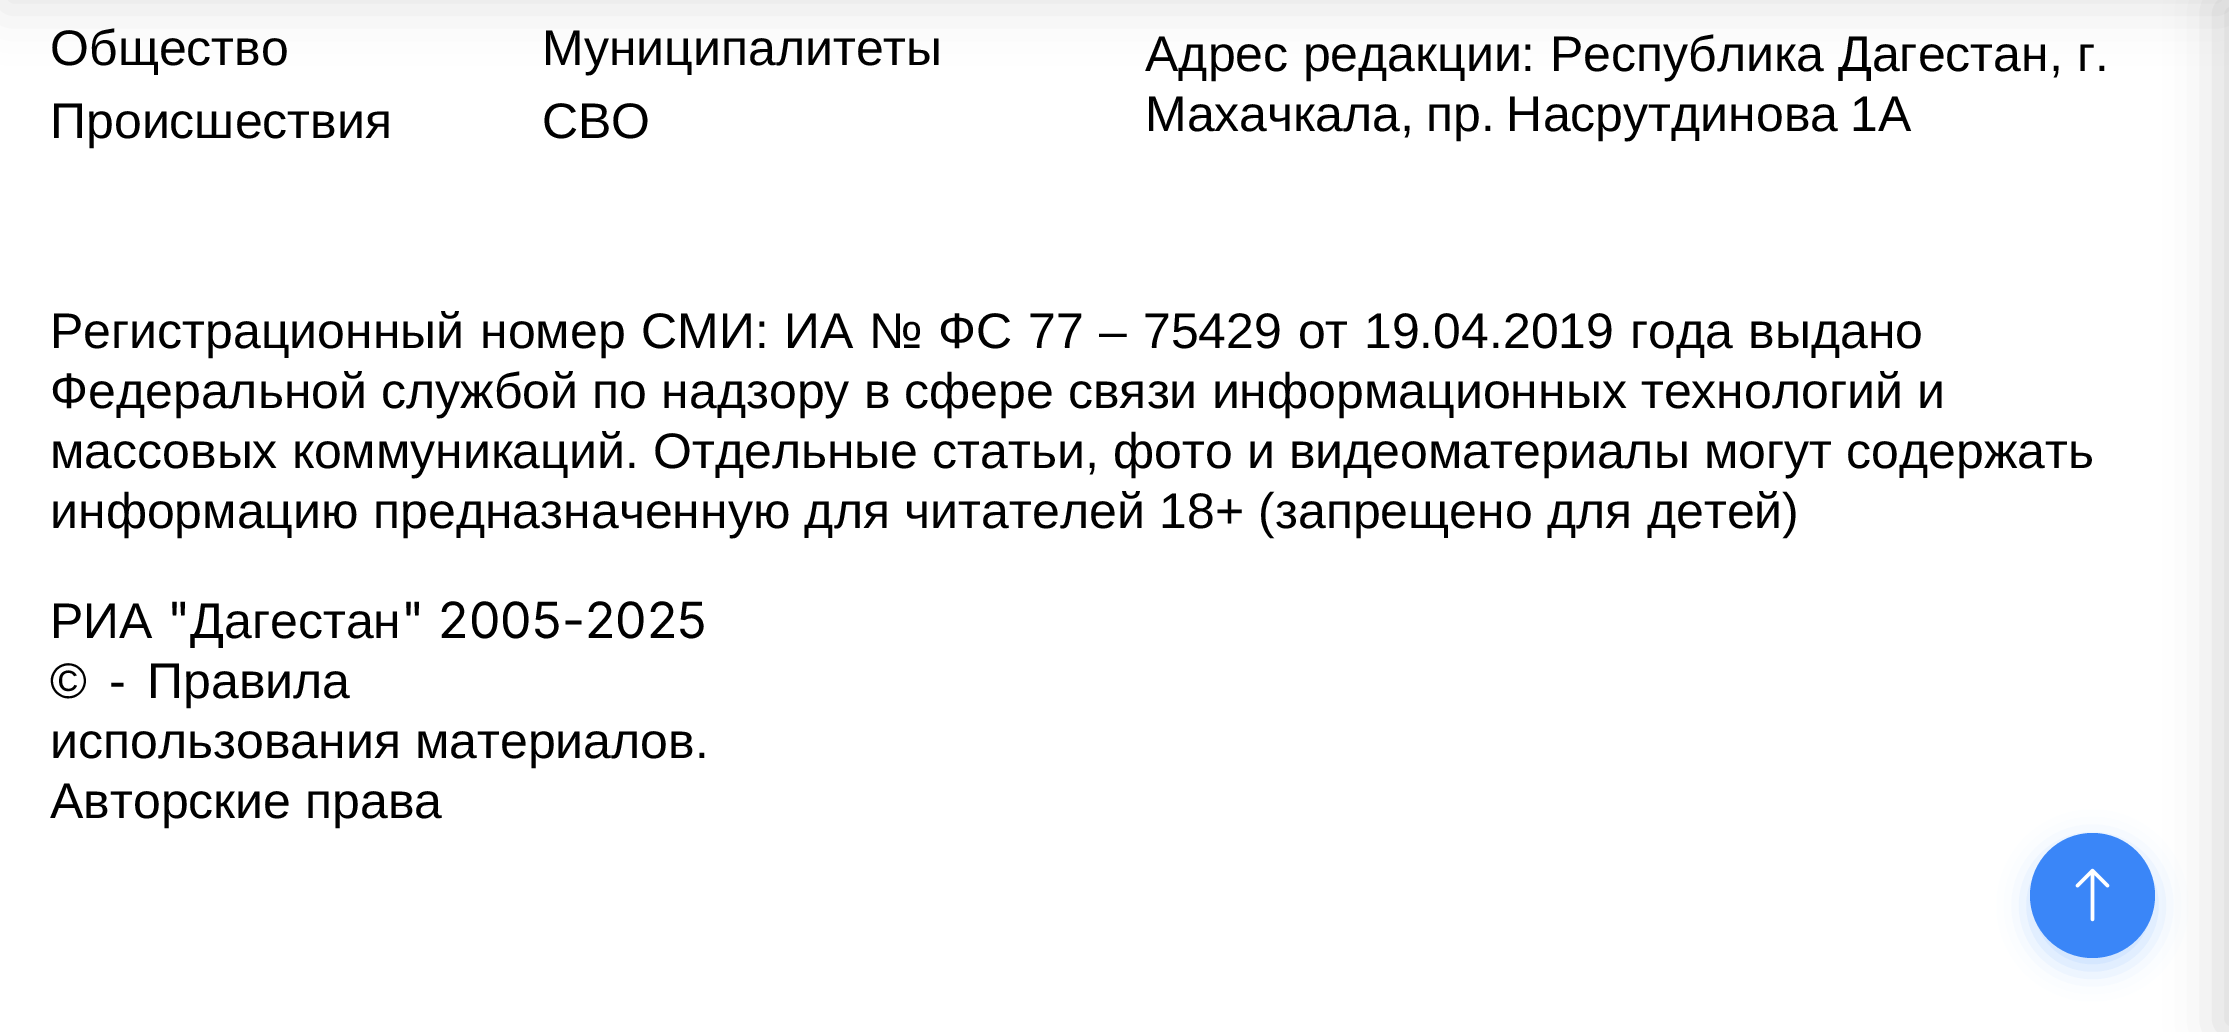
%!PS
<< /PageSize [2229 1032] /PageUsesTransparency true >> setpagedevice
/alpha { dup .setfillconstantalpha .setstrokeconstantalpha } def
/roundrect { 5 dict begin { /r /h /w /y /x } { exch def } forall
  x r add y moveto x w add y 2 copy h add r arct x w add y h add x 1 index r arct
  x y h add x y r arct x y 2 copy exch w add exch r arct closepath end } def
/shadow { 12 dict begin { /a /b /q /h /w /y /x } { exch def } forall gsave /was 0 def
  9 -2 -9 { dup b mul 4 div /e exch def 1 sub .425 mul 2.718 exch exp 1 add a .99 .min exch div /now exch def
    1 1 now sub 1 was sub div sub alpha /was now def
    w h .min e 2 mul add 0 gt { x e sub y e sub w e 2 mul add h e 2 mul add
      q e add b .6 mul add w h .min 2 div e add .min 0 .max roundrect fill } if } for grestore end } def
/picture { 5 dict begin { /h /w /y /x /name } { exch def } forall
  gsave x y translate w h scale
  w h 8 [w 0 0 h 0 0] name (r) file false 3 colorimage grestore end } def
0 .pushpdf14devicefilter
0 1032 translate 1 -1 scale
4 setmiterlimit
1 setgray
0 0 2229 1032 rectfill
0 setgray
0 -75 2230 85 0 25 0.1 shadow
/LiberationSans-Regular [50 0 0 -50 0 0] selectfont
50 65 moveto (Общество) show
50 138 moveto (Происшествия) show
542 65 moveto (Муниципалитеты) show
542 138 moveto (СВО) show
1145 71 moveto 0.5 0 32 (Адрес редакции: Республика Дагестан, г.) widthshow
1145 131 moveto -2 0 32 (Махачкала, пр. Насрутдинова 1А) widthshow
50 348 moveto 1.75 0 32 (Регистрационный номер СМИ: ИА № ФС 77 – 75429 от 19.04.2019 года выдано) widthshow
50 408 moveto 0.25 0 32 (Федеральной службой по надзору в сфере связи информационных технологий и) widthshow
50 468 moveto 0.25 0 32 (массовых коммуникаций. Отдельные статьи, фото и видеоматериалы могут содержать) widthshow
50 528 moveto 0.5 0 32 (информацию предназначенную для читателей 18+ \(запрещено для детей\)) widthshow
50 638 moveto (РИА) show
/Inter-Regular [50 0 0 -50 0 0] selectfont
167 638 moveto (") show
/LiberationSans-Regular [50 0 0 -50 0 0] selectfont
190 638 moveto (Дагестан) show
/Inter-Regular [50 0 0 -50 0 0] selectfont
401 638 moveto (" 2005-2025) show
/LiberationSans-Regular [50 0 0 -50 0 0] selectfont
50 698 moveto 8 0 32 (© - Правила) widthshow
50 758 moveto (использования материалов.) show
50 818 moveto (Авторские права) show
0.227 0.525 0.973 setrgbcolor
2030 843 125 125 62.5 15 0.3 shadow
newpath 2092.5 895.5 62.5 0 360 arc closepath fill
0 setgray
2218 0 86 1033 0 25 0.15 shadow
(img1.rgb) 2075 868 35 54 picture
.poppdf14devicefilter showpage
